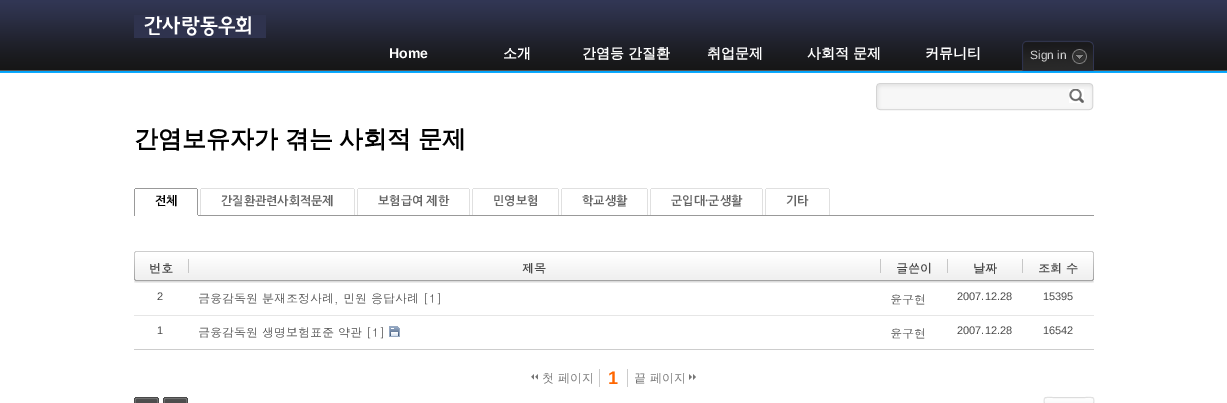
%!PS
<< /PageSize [1227 403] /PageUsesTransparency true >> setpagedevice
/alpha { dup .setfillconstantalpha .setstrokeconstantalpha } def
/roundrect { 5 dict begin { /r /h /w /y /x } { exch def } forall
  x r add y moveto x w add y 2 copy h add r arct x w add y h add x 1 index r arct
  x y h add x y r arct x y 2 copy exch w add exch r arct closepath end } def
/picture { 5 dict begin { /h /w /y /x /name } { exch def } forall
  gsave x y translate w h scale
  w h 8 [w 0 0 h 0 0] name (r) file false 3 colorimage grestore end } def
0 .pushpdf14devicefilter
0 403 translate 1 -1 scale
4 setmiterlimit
1 setgray
0 0 1227 403 rectfill
(img1.rgb) 0 0 1227 73 picture
(img2.rgb) 134 15 132 23 picture
/LiberationSans-Bold [14 0 0 -14 0 0] selectfont
389 58 moveto (Home) show
/WenQuanYiZenHei-Bold [14 0 0 -14 0 0] selectfont
503 58 moveto (소개) show
582 58 moveto (간염등 간질환) show
707 58 moveto (취업문제) show
807 58 moveto (사회적 문제) show
925 58 moveto (커뮤니티) show
(img3.rgb) 1067 40 27 31 picture
(img4.rgb) 1022 40 45 31 picture
/LiberationSans-Regular [12 0 0 -12 0 0] selectfont
0.827 setgray
1030 59 moveto (Sign in) show
(img5.rgb) 876 83 218 28 picture
(img6.rgb) 1069 89 15 14 picture
/WenQuanYiZenHei-Bold [24 0 0 -24 0 0] selectfont
0 setgray
134 147 moveto -0.5 0 32 (간염보유자가 겪는 사회적 문제) widthshow
0.6 setgray
198 215 896 1 rectfill
197 189 1 27 rectfill
1 setgray
197 215 1 1 rectfill
0.6 setgray
134 189 1 27 rectfill
135 188 62 1 rectfill
/NanumGothic-Bold [12 0 0 -12 0 0] selectfont
0 setgray
155 205 moveto (전체) show
0.878 setgray
354 189 1 26 rectfill
200 189 1 26 rectfill
201 188 153 1 rectfill
0.4 setgray
221 205 moveto (간질환관련사회적문제) show
0.878 setgray
469 189 1 26 rectfill
357 189 1 26 rectfill
358 188 111 1 rectfill
0.4 setgray
378 205 moveto (보험급여 제한) show
0.878 setgray
558 189 1 26 rectfill
472 189 1 26 rectfill
473 188 85 1 rectfill
0.4 setgray
493 205 moveto (민영보험) show
0.878 setgray
647 189 1 26 rectfill
561 189 1 26 rectfill
562 188 85 1 rectfill
0.4 setgray
582 205 moveto (학교생활) show
0.878 setgray
762 189 1 26 rectfill
650 189 1 26 rectfill
651 188 111 1 rectfill
0.4 setgray
671 205 moveto (군입대·군생활) show
0.878 setgray
829 189 1 26 rectfill
765 189 1 26 rectfill
766 188 63 1 rectfill
0.4 setgray
786 205 moveto (기타) show
(img7.rgb) 134 251 958 32 picture
(img8.rgb) 1092 251 2 32 picture
0.804 setgray
134 349 960 1 rectfill
/Dotum-Bold [12 0 0 -12 0 0] selectfont
0.29 setgray
149 273 moveto (번호) show
0.78 setgray
188 259 1 14 rectfill
0.29 setgray
522 273 moveto (제목) show
0.78 setgray
880 259 1 14 rectfill
0.29 setgray
896 273 moveto (글쓴이) show
0.78 setgray
947 259 1 14 rectfill
0.29 setgray
973 273 moveto (날짜) show
0.78 setgray
1022 259 1 14 rectfill
0.29 setgray
1038 273 moveto (조회 수) show
0.902 setgray
134 315 960 1 rectfill
/LiberationSans-Regular [11 0 0 -11 0 0] selectfont
0.29 setgray
157 300 moveto (2) show
/Dotum-Regular [12 0 0 -12 0 0] selectfont
198 303 moveto (금융감독원 분재조정사례, 민원 응답사례 [1]) show
890 304 moveto (윤구현) show
/LiberationSans-Regular [11 0 0 -11 0 0] selectfont
957 300 moveto (2007.12.28) show
1043 300 moveto (15395) show
157 334 moveto (1) show
/Dotum-Regular [12 0 0 -12 0 0] selectfont
198 337 moveto (금융감독원 생명보험표준 약관 [1]) show
(img9.rgb) 389 326 11 11 picture
890 338 moveto (윤구현) show
/LiberationSans-Regular [11 0 0 -11 0 0] selectfont
957 334 moveto (2007.12.28) show
1043 334 moveto (16542) show
0.463 setgray
newpath 534 374 moveto 534 380 lineto 531 377 lineto closepath fill
1 setgray
newpath 534 380 moveto 531 380 lineto 531 377 lineto closepath fill
0.463 setgray
newpath 538 374 moveto 538 380 lineto 535 377 lineto closepath fill
1 setgray
newpath 538 380 moveto 535 380 lineto 535 377 lineto closepath fill
/WenQuanYiZenHei-Medium [12 0 0 -12 0 0] selectfont
0.463 setgray
542 382 moveto (첫 페이지) show
0.8 setgray
627 369 1 18 rectfill
599 369 1 18 rectfill
/LiberationSans-Bold [18 0 0 -18 0 0] selectfont
1 0.4 0 setrgbcolor
608 384 moveto (1) show
/WenQuanYiZenHei-Medium [12 0 0 -12 0 0] selectfont
0.463 setgray
634 382 moveto (끝 페이지) show
newpath 689 380 moveto 689 374 lineto 692 377 lineto closepath 693 380 moveto 693 374 lineto 696 377 lineto closepath fill
(img10.rgb) 134 397 25 6 picture
(img10.rgb) 163 397 25 6 picture
0.961 setgray
1044 397 50 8 2 roundrect fill
gsave newpath 1044 398 moveto 1094 398 lineto 1094 403 lineto 1044 403 lineto closepath clip newpath
<< /ShadingType 2 /ColorSpace /DeviceRGB /Coords [1069 398 1069 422] /Extend [true true] /Function << /FunctionType 2 /Domain [0 1] /C0 [1 1 1] /C1 [0.902 0.902 0.902] /N 1 >> >> shfill grestore
0.996 setgray
newpath 1046 399 moveto 1092 399 lineto 1093 400 lineto 1093 396 1090 398 1084 398 curveto 1054 398 lineto 1047 398 1045 396 1045 401 curveto closepath fill
0.1 alpha
0 setgray
newpath 1045 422 moveto 1043.5 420.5 1044.5 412 1044.5 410 curveto 1044.5 396 1041.5 397.5 1053.5 397.5 curveto 1084.5 397.5 lineto 1096.5 397.5 1093.5 396 1093.5 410 curveto 1093.5 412 1094.5 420.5 1093 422 curveto stroke
.poppdf14devicefilter showpage
